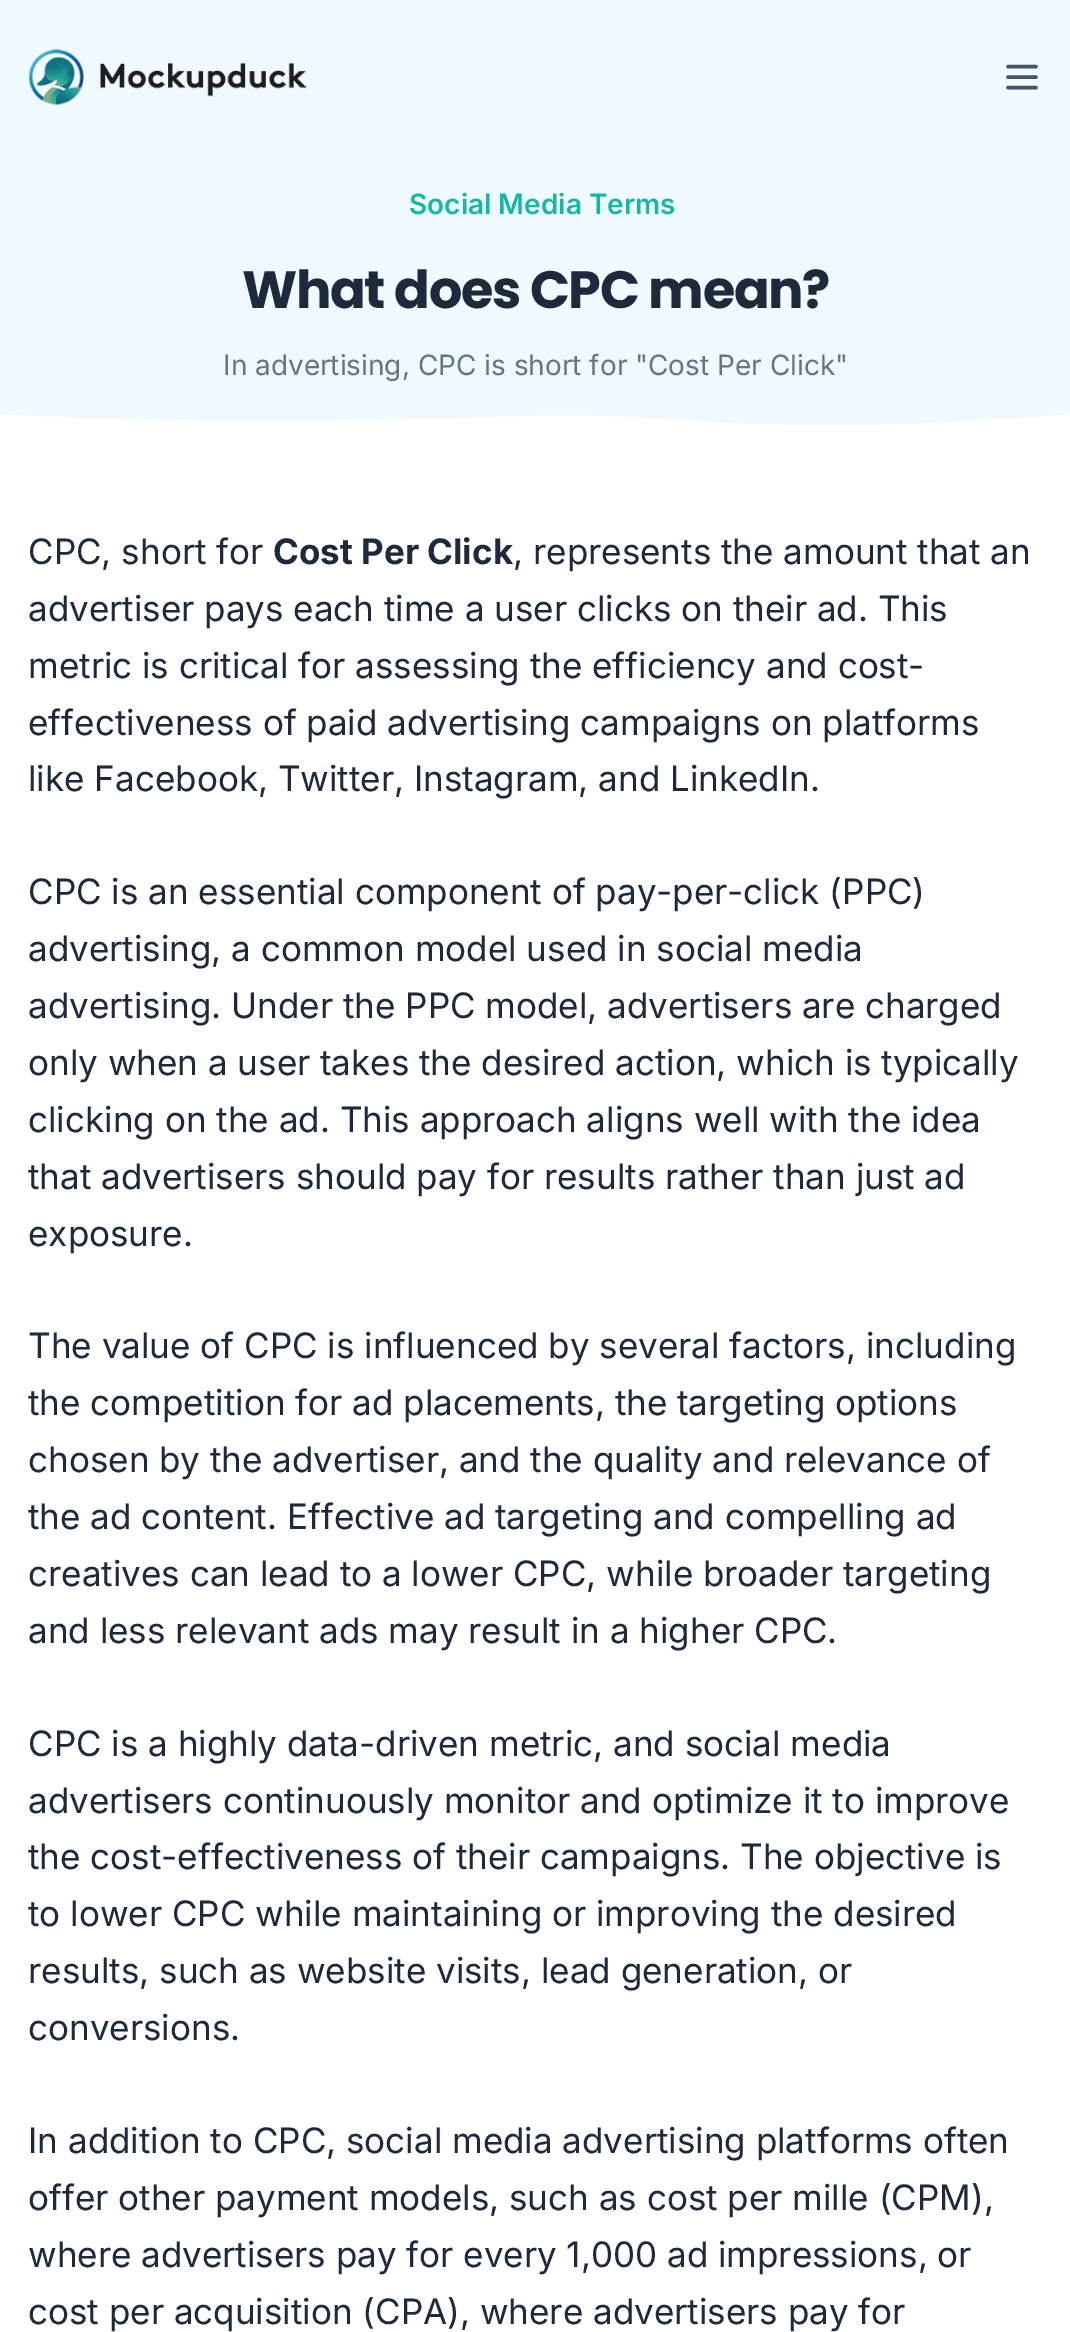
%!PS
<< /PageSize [1070 2332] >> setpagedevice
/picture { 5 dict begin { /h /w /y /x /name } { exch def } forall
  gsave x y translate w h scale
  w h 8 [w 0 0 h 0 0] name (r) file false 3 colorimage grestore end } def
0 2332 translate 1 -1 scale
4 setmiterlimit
1 setgray
0 0 1070 2332 rectfill
0.941 0.976 1 setrgbcolor
0 0 1070 413 rectfill
(img1.rgb) 28 49 279 56 picture
0.278 0.333 0.412 setrgbcolor
3.5 setlinewidth
1 setlinecap
1 setlinejoin
newpath 1008 66.5 moveto 1036 66.5 lineto 1008 77 moveto 1036 77 lineto 1008 87.5 moveto 1036 87.5 lineto stroke
/Inter-SemiBold [28 0 0 -28 0 0] selectfont
0.078 0.722 0.651 setrgbcolor
409 214 moveto (Social Media Terms) show
/Poppins-Bold [52.5 0 0 -52.5 0 0] selectfont
0.118 0.161 0.231 setrgbcolor
242 308 moveto -1.3 0 (What does CPC mean?) ashow
/Inter-Regular [28 0 0 -28 0 0] selectfont
0.392 0.455 0.545 setrgbcolor
223 375 moveto (In advertising, CPC is short for "Cost Per Click") show
gsave
0 413 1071 12 rectclip
0.941 0.976 1 setrgbcolor
newpath 0 413 moveto 0 414 lineto 124 421 247 422 371 420 curveto 558 415 lineto 634 415 710 423 786 425 curveto 881 427 976 421 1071 414 curveto 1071 413 lineto closepath fill
grestore
/Inter-Regular [35 0 0 -35 0 0] selectfont
0.118 0.161 0.231 setrgbcolor
28 564 moveto (CPC, short for) show
/Inter-Bold [35 0 0 -35 0 0] selectfont
273 564 moveto (Cost Per Click) show
/Inter-Regular [35 0 0 -35 0 0] selectfont
513 564 moveto (, represents the amount that an) show
28 621 moveto (advertiser pays each time a user clicks on their ad. This) show
28 678 moveto (metric is critical for assessing the efficiency and cost-) show
28 735 moveto (effectiveness of paid advertising campaigns on platforms) show
28 791 moveto (like Facebook, Twitter, Instagram, and LinkedIn.) show
28 904 moveto (CPC is an essential component of pay-per-click \(PPC\)) show
28 961 moveto (advertising, a common model used in social media) show
28 1018 moveto (advertising. Under the PPC model, advertisers are charged) show
28 1075 moveto (only when a user takes the desired action, which is typically) show
28 1132 moveto (clicking on the ad. This approach aligns well with the idea) show
28 1189 moveto (that advertisers should pay for results rather than just ad) show
28 1246 moveto (exposure.) show
28 1358 moveto (The value of CPC is influenced by several factors, including) show
28 1415 moveto (the competition for ad placements, the targeting options) show
28 1472 moveto (chosen by the advertiser, and the quality and relevance of) show
28 1529 moveto (the ad content. Effective ad targeting and compelling ad) show
28 1586 moveto (creatives can lead to a lower CPC, while broader targeting) show
28 1643 moveto (and less relevant ads may result in a higher CPC.) show
28 1756 moveto (CPC is a highly data-driven metric, and social media) show
28 1813 moveto (advertisers continuously monitor and optimize it to improve) show
28 1869 moveto (the cost-effectiveness of their campaigns. The objective is) show
28 1926 moveto (to lower CPC while maintaining or improving the desired) show
28 1983 moveto (results, such as website visits, lead generation, or) show
28 2040 moveto (conversions.) show
28 2153 moveto (In addition to CPC, social media advertising platforms often) show
28 2210 moveto (offer other payment models, such as cost per mille \(CPM\),) show
28 2267 moveto (where advertisers pay for every 1,000 ad impressions, or) show
28 2324 moveto (cost per acquisition \(CPA\), where advertisers pay for) show
showpage
